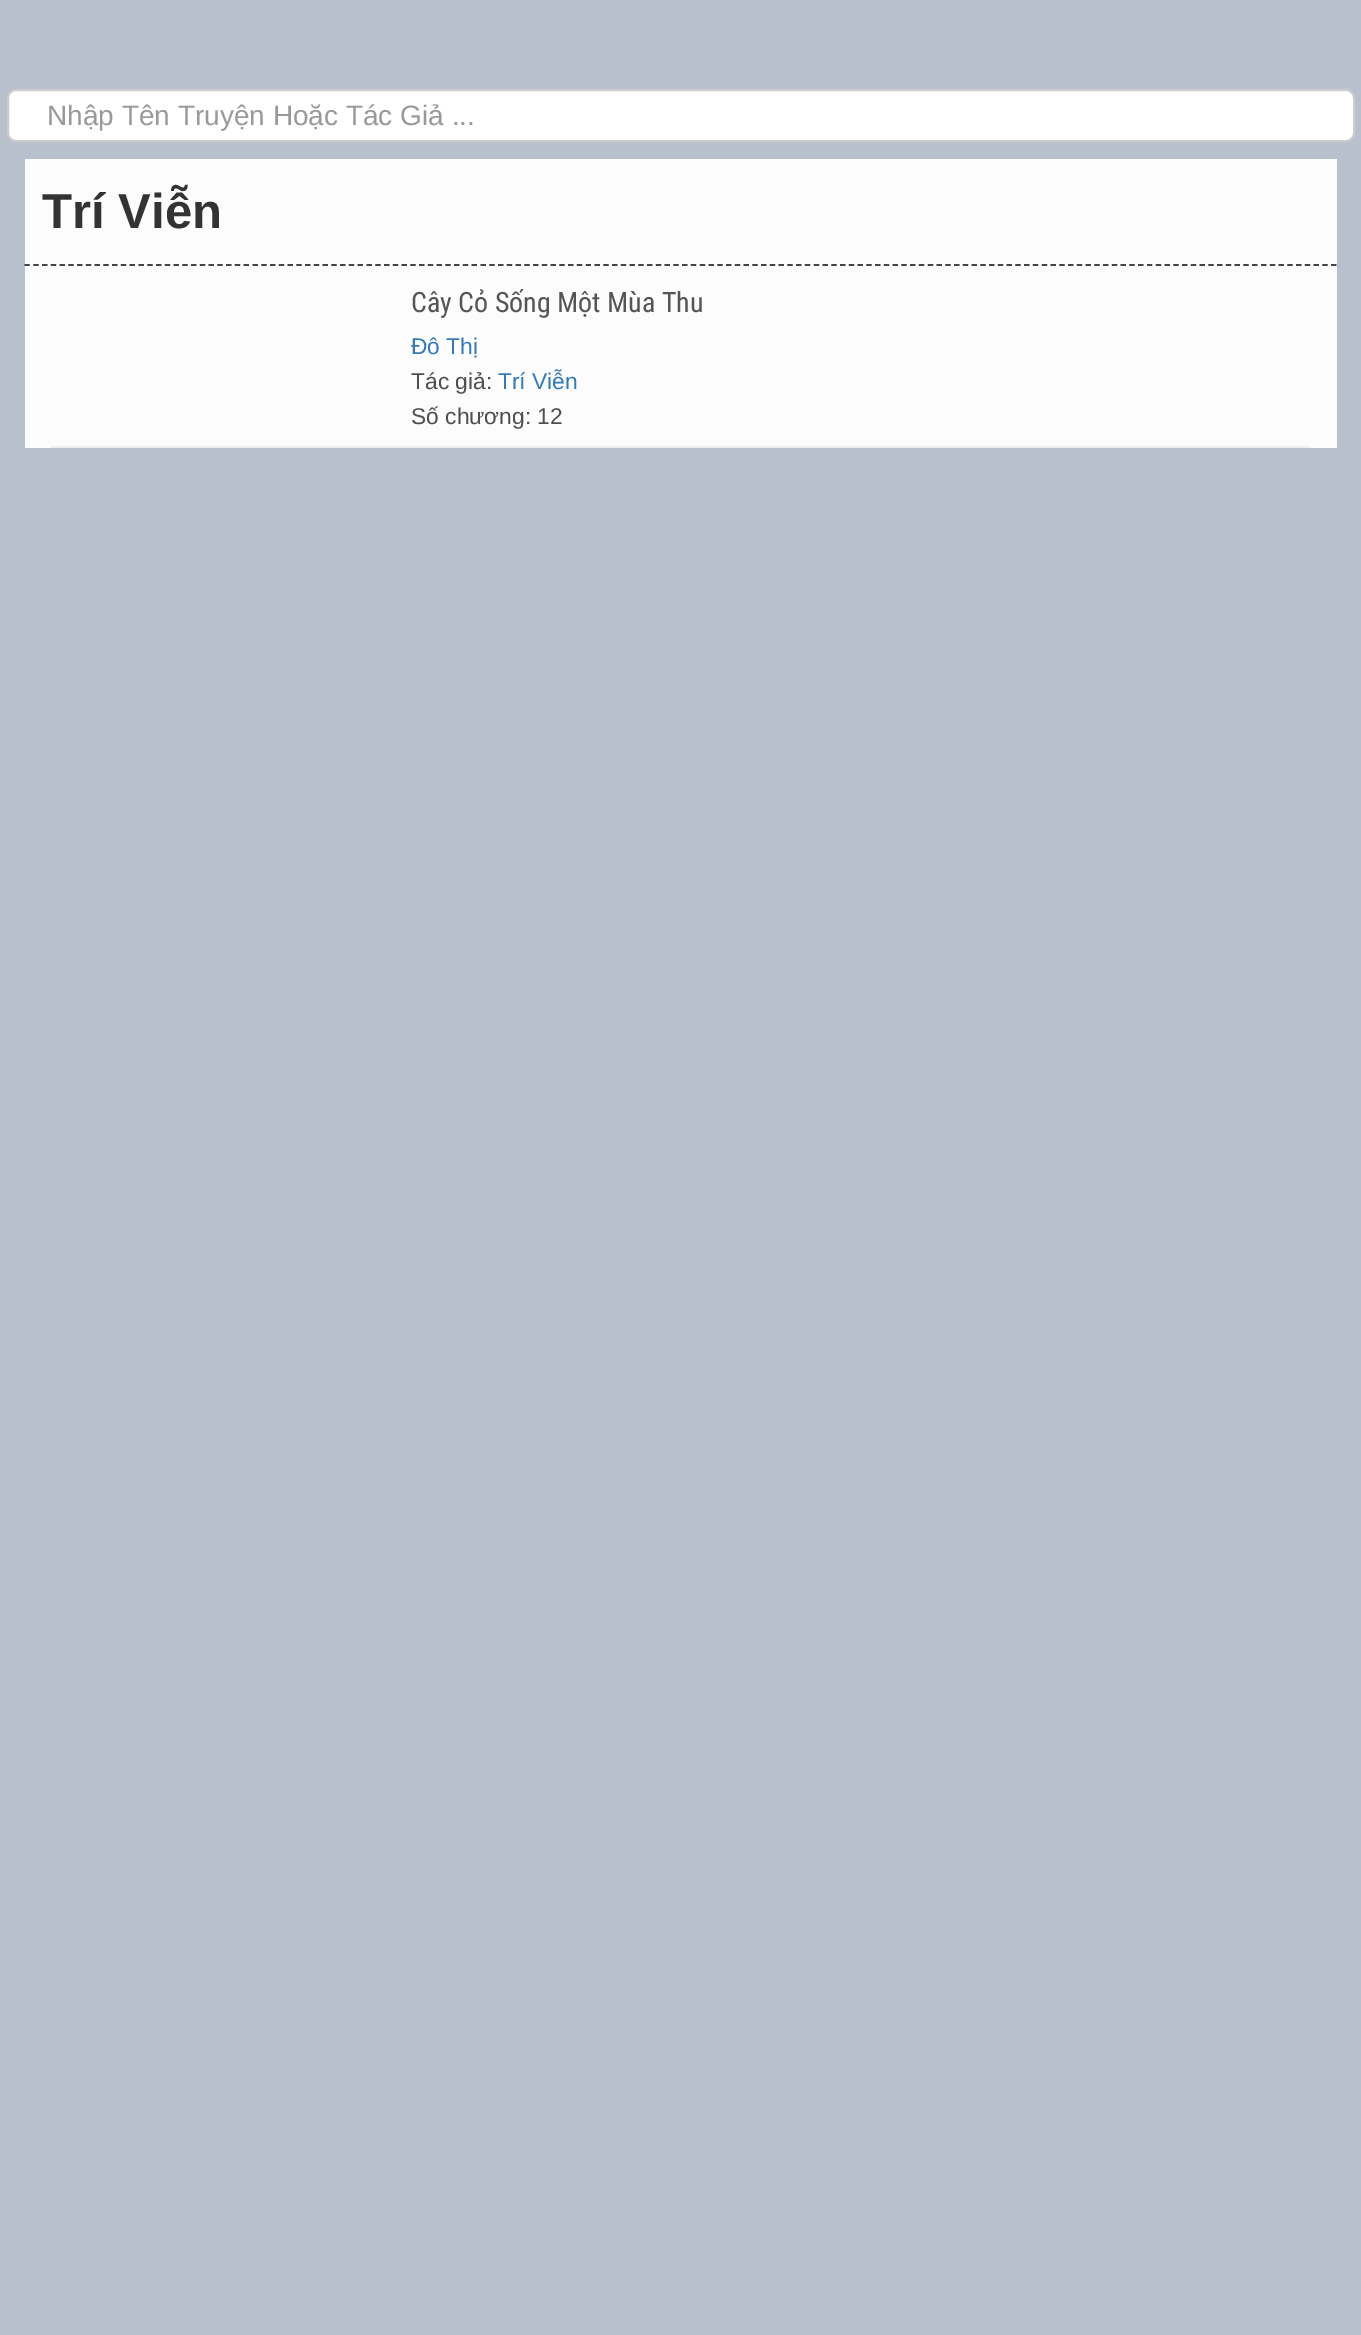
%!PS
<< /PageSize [1361 2335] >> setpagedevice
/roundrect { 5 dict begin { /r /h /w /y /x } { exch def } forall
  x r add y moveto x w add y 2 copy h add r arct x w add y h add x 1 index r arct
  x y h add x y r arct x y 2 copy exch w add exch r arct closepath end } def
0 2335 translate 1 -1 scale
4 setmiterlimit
0.718 0.753 0.8 setrgbcolor
0 0 1361 2335 rectfill
1 setgray
8 90 1346 51 8 roundrect gsave fill grestore
0.8 setgray
2 setlinewidth
stroke
/LiberationSans-Regular [28 0 0 -28 0 0] selectfont
0.6 setgray
47 125 moveto (Nhập Tên Truyện Hoặc Tác Giả ...) show
0.988 setgray
25 159 1312 289 rectfill
0.267 setgray
1.8 setlinewidth
[5.25 3.52] 0 setdash
newpath 24.5 265 moveto 1337 265 lineto stroke
/LiberationSans-Bold [49 0 0 -49 0 0] selectfont
0.2 setgray
42 228 moveto (Trí Viễn) show
0.933 setgray
51 446 1260 2 rectfill
/RobotoCondensed-Regular [28 0 0 -28 0 0] selectfont
0.333 setgray
411 312 moveto (Cây Cỏ Sống Một Mùa Thu) show
/LiberationSans-Regular [22.75 0 0 -22.75 0 0] selectfont
0.2 0.478 0.718 setrgbcolor
411 354 moveto (Đô Thị) show
0.306 setgray
411 389 moveto (Tác giả:) show
0.2 0.478 0.718 setrgbcolor
498 389 moveto (Trí Viễn) show
0.306 setgray
411 424 moveto (Số chương: 12) show
showpage
